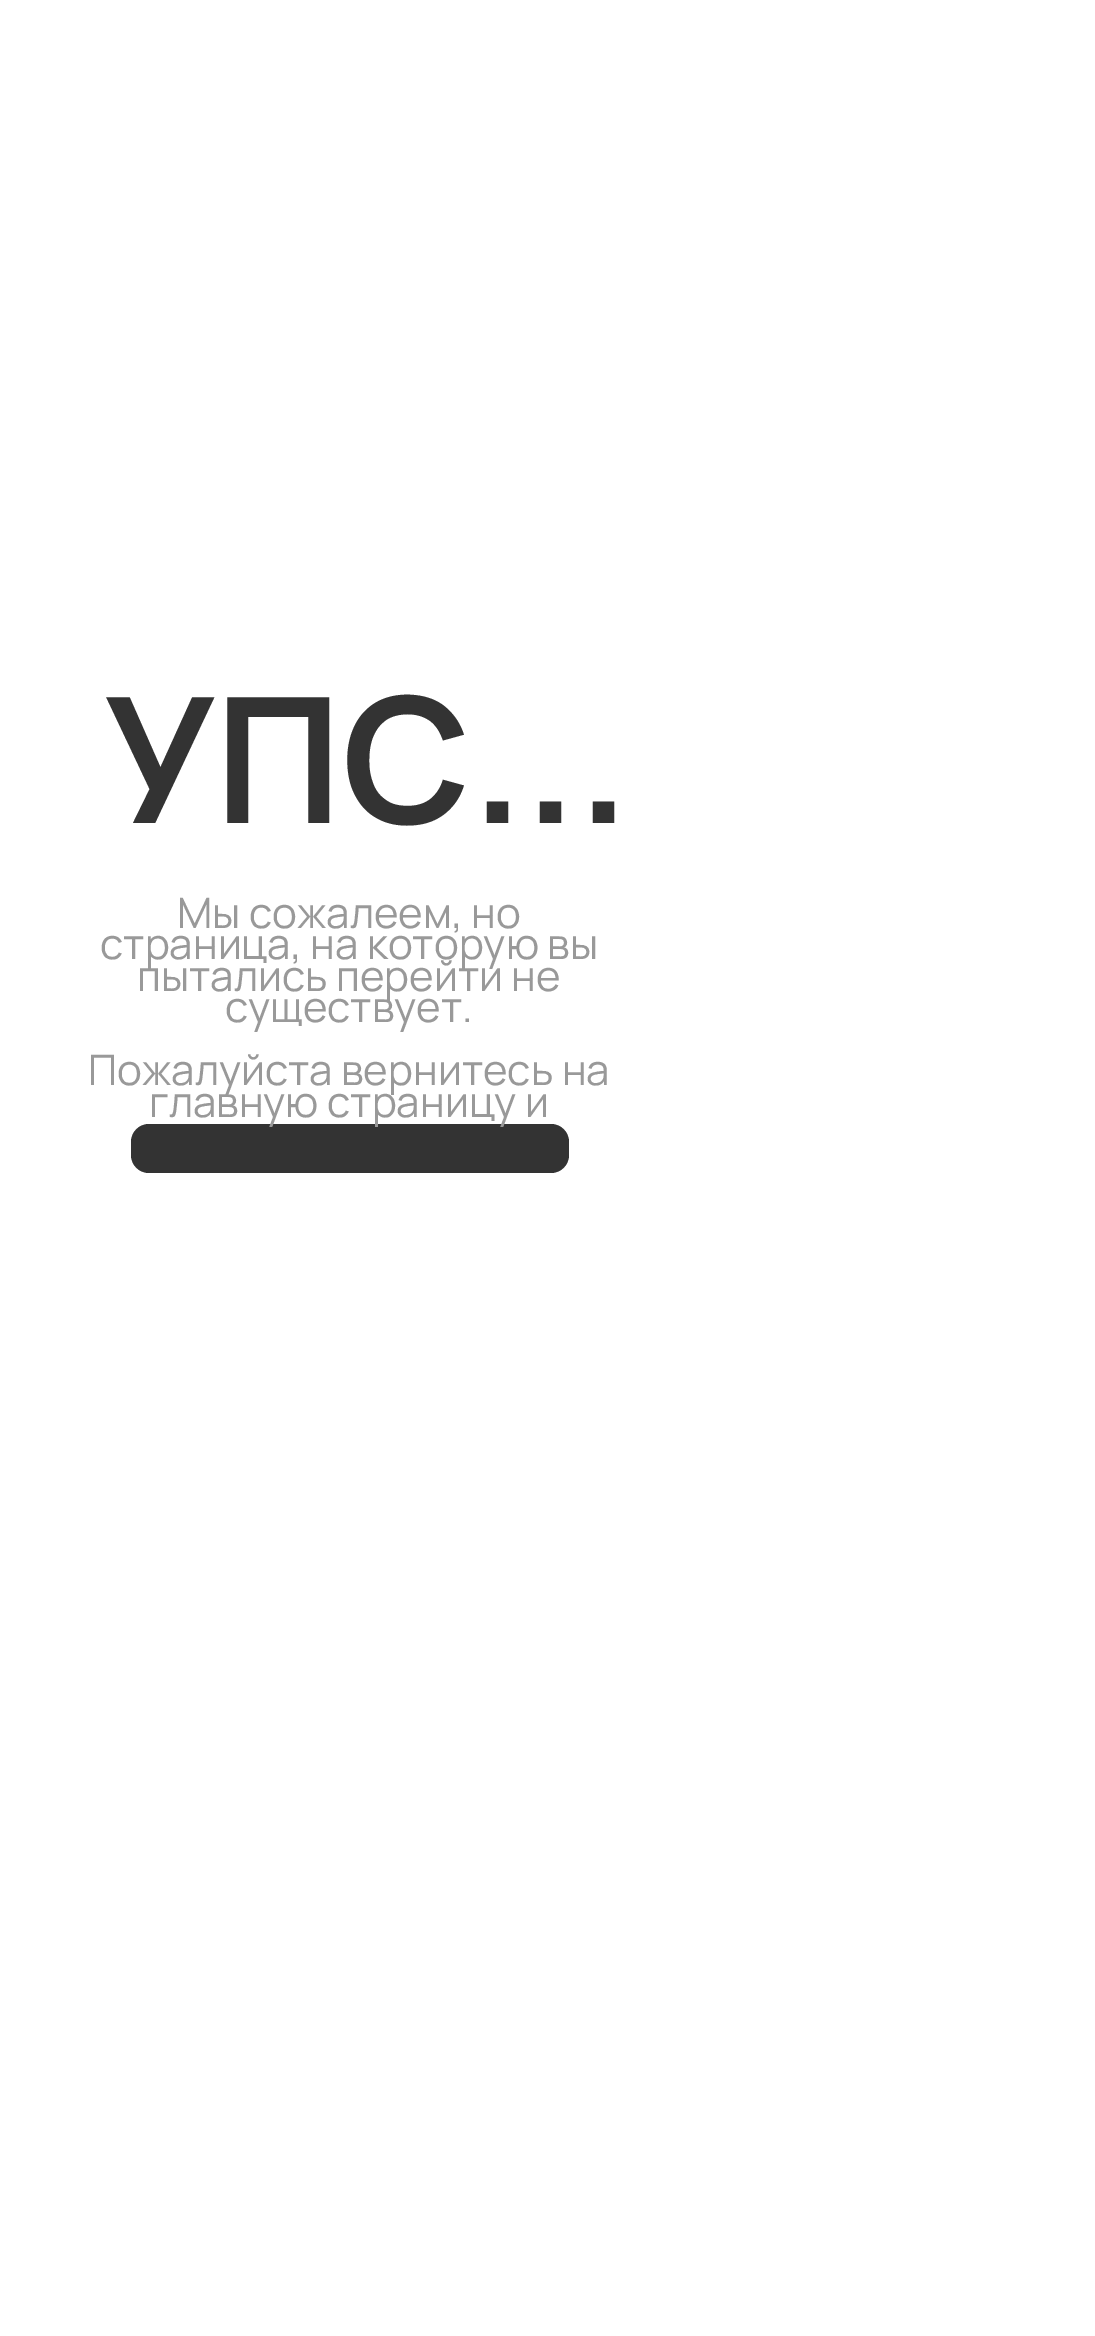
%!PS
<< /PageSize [1095 2336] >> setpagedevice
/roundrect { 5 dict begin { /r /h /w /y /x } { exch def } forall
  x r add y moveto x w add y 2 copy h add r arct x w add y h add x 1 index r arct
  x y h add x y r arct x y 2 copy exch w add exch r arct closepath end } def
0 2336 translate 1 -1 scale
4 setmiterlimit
1 setgray
0 0 1095 2336 rectfill
/Manrope-Bold [175 0 0 -175 0 0] selectfont
0.2 setgray
104 823 moveto (УПС...) show
/Manrope-Regular [42 0 0 -42 0 0] selectfont
0.6 setgray
177 928 moveto (Мы сожалеем, но) show
100 959 moveto (страница, на которую вы) show
137 991 moveto (пытались перейти не) show
225 1022 moveto (существует.) show
88 1085 moveto (Пожалуйста вернитесь на) show
0.2 setgray
131 1124 438 49 18 roundrect fill
0.6 setgray
149 1117 moveto (главную страницу и) show
showpage
